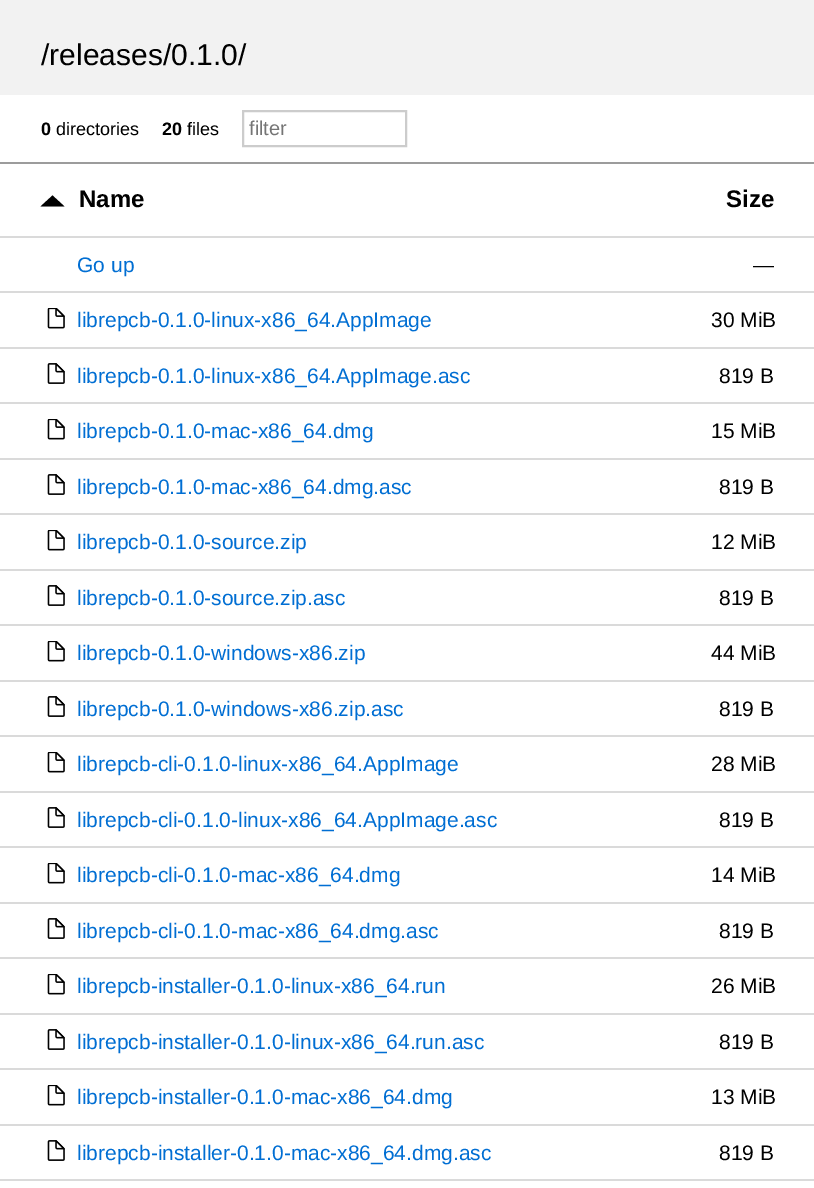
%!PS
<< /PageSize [814 1188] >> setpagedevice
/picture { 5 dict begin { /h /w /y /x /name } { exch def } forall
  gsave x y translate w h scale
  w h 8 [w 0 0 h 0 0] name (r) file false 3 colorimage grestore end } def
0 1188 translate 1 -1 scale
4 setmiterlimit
1 setgray
0 0 814 1188 rectfill
0.949 setgray
0 0 814 95 rectfill
/LiberationSans-Regular [30 0 0 -30 0 0] selectfont
0 setgray
41 65 moveto (/releases/0.1.0/) show
0.612 setgray
0 162 814 2 rectfill
/LiberationSans-Bold [18 0 0 -18 0 0] selectfont
0 setgray
41 135 moveto (0) show
/LiberationSans-Regular [18 0 0 -18 0 0] selectfont
56 135 moveto (directories) show
/LiberationSans-Bold [18 0 0 -18 0 0] selectfont
162 135 moveto (20) show
/LiberationSans-Regular [18 0 0 -18 0 0] selectfont
187 135 moveto (files) show
0.8 setgray
2 setlinewidth
243 111 163 35 rectstroke
/LiberationSans-Regular [20 0 0 -20 0 0] selectfont
0.459 setgray
249 135 moveto (filter) show
0.855 setgray
0 236 814 2 rectfill
0 setgray
newpath 64.5 206.5 moveto 40.5 206.5 lineto 52.5 195.5 lineto 58.5 201 lineto closepath fill
/LiberationSans-Bold [24 0 0 -24 0 0] selectfont
79 207 moveto (Name) show
726 207 moveto (Size) show
0.855 setgray
0 291 814 2 rectfill
/LiberationSans-Regular [21 0 0 -21 0 0] selectfont
0 0.431 0.827 setrgbcolor
77 272 moveto (Go up) show
0 setgray
753 272 moveto (—) show
0.855 setgray
0 347 814 2 rectfill
(img1.rgb) 47 308 18 21 picture
0 0.431 0.827 setrgbcolor
77 327 moveto (librepcb-0.1.0-linux-x86_64.AppImage) show
0 setgray
711 327 moveto (30 MiB) show
0.855 setgray
0 402 814 2 rectfill
(img2.rgb) 47 363 18 21 picture
0 0.431 0.827 setrgbcolor
77 383 moveto (librepcb-0.1.0-linux-x86_64.AppImage.asc) show
0 setgray
719 383 moveto (819 B) show
0.855 setgray
0 458 814 2 rectfill
(img1.rgb) 47 419 18 21 picture
0 0.431 0.827 setrgbcolor
77 438 moveto (librepcb-0.1.0-mac-x86_64.dmg) show
0 setgray
711 438 moveto (15 MiB) show
0.855 setgray
0 513 814 2 rectfill
(img2.rgb) 47 474 18 21 picture
0 0.431 0.827 setrgbcolor
77 494 moveto (librepcb-0.1.0-mac-x86_64.dmg.asc) show
0 setgray
719 494 moveto (819 B) show
0.855 setgray
0 569 814 2 rectfill
(img1.rgb) 47 530 18 21 picture
0 0.431 0.827 setrgbcolor
77 549 moveto (librepcb-0.1.0-source.zip) show
0 setgray
711 549 moveto (12 MiB) show
0.855 setgray
0 624 814 2 rectfill
(img2.rgb) 47 585 18 21 picture
0 0.431 0.827 setrgbcolor
77 605 moveto (librepcb-0.1.0-source.zip.asc) show
0 setgray
719 605 moveto (819 B) show
0.855 setgray
0 680 814 2 rectfill
(img1.rgb) 47 641 18 21 picture
0 0.431 0.827 setrgbcolor
77 660 moveto (librepcb-0.1.0-windows-x86.zip) show
0 setgray
711 660 moveto (44 MiB) show
0.855 setgray
0 735 814 2 rectfill
(img2.rgb) 47 696 18 21 picture
0 0.431 0.827 setrgbcolor
77 716 moveto (librepcb-0.1.0-windows-x86.zip.asc) show
0 setgray
719 716 moveto (819 B) show
0.855 setgray
0 791 814 2 rectfill
(img1.rgb) 47 752 18 21 picture
0 0.431 0.827 setrgbcolor
77 771 moveto (librepcb-cli-0.1.0-linux-x86_64.AppImage) show
0 setgray
711 771 moveto (28 MiB) show
0.855 setgray
0 846 814 2 rectfill
(img2.rgb) 47 807 18 21 picture
0 0.431 0.827 setrgbcolor
77 827 moveto (librepcb-cli-0.1.0-linux-x86_64.AppImage.asc) show
0 setgray
719 827 moveto (819 B) show
0.855 setgray
0 902 814 2 rectfill
(img1.rgb) 47 863 18 21 picture
0 0.431 0.827 setrgbcolor
77 882 moveto (librepcb-cli-0.1.0-mac-x86_64.dmg) show
0 setgray
711 882 moveto (14 MiB) show
0.855 setgray
0 957 814 2 rectfill
(img2.rgb) 47 918 18 21 picture
0 0.431 0.827 setrgbcolor
77 938 moveto (librepcb-cli-0.1.0-mac-x86_64.dmg.asc) show
0 setgray
719 938 moveto (819 B) show
0.855 setgray
0 1013 814 2 rectfill
(img1.rgb) 47 974 18 21 picture
0 0.431 0.827 setrgbcolor
77 993 moveto (librepcb-installer-0.1.0-linux-x86_64.run) show
0 setgray
711 993 moveto (26 MiB) show
0.855 setgray
0 1068 814 2 rectfill
(img2.rgb) 47 1029 18 21 picture
0 0.431 0.827 setrgbcolor
77 1049 moveto (librepcb-installer-0.1.0-linux-x86_64.run.asc) show
0 setgray
719 1049 moveto (819 B) show
0.855 setgray
0 1124 814 2 rectfill
(img1.rgb) 47 1085 18 21 picture
0 0.431 0.827 setrgbcolor
77 1104 moveto (librepcb-installer-0.1.0-mac-x86_64.dmg) show
0 setgray
711 1104 moveto (13 MiB) show
0.855 setgray
0 1179 814 2 rectfill
(img2.rgb) 47 1140 18 21 picture
0 0.431 0.827 setrgbcolor
77 1160 moveto (librepcb-installer-0.1.0-mac-x86_64.dmg.asc) show
0 setgray
719 1160 moveto (819 B) show
showpage
